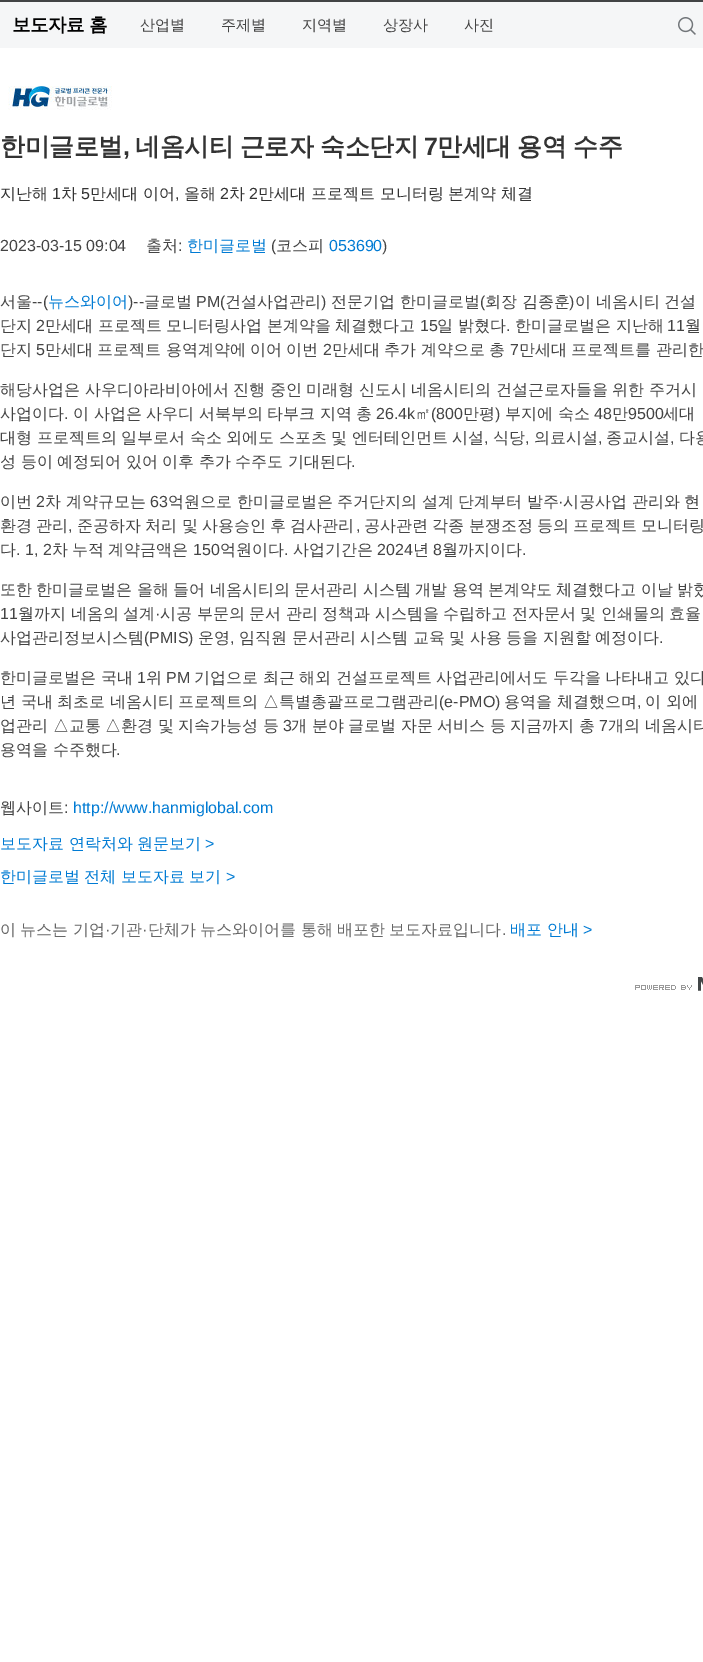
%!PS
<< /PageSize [703 1662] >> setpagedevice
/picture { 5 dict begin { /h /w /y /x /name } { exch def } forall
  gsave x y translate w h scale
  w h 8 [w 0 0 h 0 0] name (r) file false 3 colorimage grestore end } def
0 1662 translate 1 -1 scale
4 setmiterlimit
1 setgray
0 0 703 1662 rectfill
0.961 0.965 0.969 setrgbcolor
0 2 703 46 rectfill
0.259 0.267 0.271 setrgbcolor
0 0 703 2 rectfill
/WenQuanYiZenHei-Bold [18.5 0 0 -18.5 0 0] selectfont
0 setgray
12 31 moveto -0.5 0 (보도자료 홈) ashow
/WenQuanYiZenHei-Medium [15 0 0 -15 0 0] selectfont
0.267 setgray
140 30 moveto (산업별) show
221 30 moveto (주제별) show
302 30 moveto (지역별) show
383 30 moveto (상장사) show
464 30 moveto (사진) show
(img1.rgb) 678 17 18 18 picture
(img2.rgb) 8 86 104 24 picture
/WenQuanYiZenHei-Bold [25 0 0 -25 0 0] selectfont
0.2 setgray
0 155 moveto -0.5 0 (한미글로벌) ashow
/LiberationSans-Bold [25 0 0 -25 0 0] selectfont
123 155 moveto -0.5 0 (,) ashow
/WenQuanYiZenHei-Bold [25 0 0 -25 0 0] selectfont
135 155 moveto -0.5 0 (네옴시티 근로자 숙소단지) ashow
/LiberationSans-Bold [25 0 0 -25 0 0] selectfont
424 155 moveto -0.5 0 (7) ashow
/WenQuanYiZenHei-Bold [25 0 0 -25 0 0] selectfont
437 155 moveto -0.5 0 (만세대 용역 수주) ashow
/WenQuanYiZenHei-Medium [16 0 0 -16 0 0] selectfont
0 199 moveto (지난해) show
/LiberationSans-Regular [16 0 0 -16 0 0] selectfont
52 199 moveto (1) show
/WenQuanYiZenHei-Medium [16 0 0 -16 0 0] selectfont
61 199 moveto (차) show
/LiberationSans-Regular [16 0 0 -16 0 0] selectfont
81 199 moveto (5) show
/WenQuanYiZenHei-Medium [16 0 0 -16 0 0] selectfont
90 199 moveto (만세대 이어) show
/LiberationSans-Regular [16 0 0 -16 0 0] selectfont
175 199 moveto (,) show
/WenQuanYiZenHei-Medium [16 0 0 -16 0 0] selectfont
184 199 moveto (올해) show
/LiberationSans-Regular [16 0 0 -16 0 0] selectfont
220 199 moveto (2) show
/WenQuanYiZenHei-Medium [16 0 0 -16 0 0] selectfont
229 199 moveto (차) show
/LiberationSans-Regular [16 0 0 -16 0 0] selectfont
249 199 moveto (2) show
/WenQuanYiZenHei-Medium [16 0 0 -16 0 0] selectfont
258 199 moveto (만세대 프로젝트 모니터링 본계약 체결) show
/LiberationSans-Regular [16 0 0 -16 0 0] selectfont
0.267 setgray
0 251 moveto (2023-03-15 09:04) show
/WenQuanYiZenHei-Medium [16 0 0 -16 0 0] selectfont
146 251 moveto (출처) show
/LiberationSans-Regular [16 0 0 -16 0 0] selectfont
178 251 moveto (:) show
/WenQuanYiZenHei-Medium [16 0 0 -16 0 0] selectfont
0 0.482 0.831 setrgbcolor
187 251 moveto (한미글로벌) show
/LiberationSans-Regular [16 0 0 -16 0 0] selectfont
0.267 setgray
271 251 moveto (\() show
/WenQuanYiZenHei-Medium [16 0 0 -16 0 0] selectfont
276 251 moveto (코스피) show
/LiberationSans-Regular [16 0 0 -16 0 0] selectfont
0 0.482 0.831 setrgbcolor
329 251 moveto (053690) show
0.267 setgray
382 251 moveto (\)) show
/WenQuanYiZenHei-Medium [16 0 0 -16 0 0] selectfont
0 307 moveto (서울) show
/LiberationSans-Regular [16 0 0 -16 0 0] selectfont
32 307 moveto (--\() show
/WenQuanYiZenHei-Medium [16 0 0 -16 0 0] selectfont
0 0.482 0.831 setrgbcolor
48 307 moveto (뉴스와이어) show
/LiberationSans-Regular [16 0 0 -16 0 0] selectfont
0.267 setgray
128 307 moveto (\)--) show
/WenQuanYiZenHei-Medium [16 0 0 -16 0 0] selectfont
144 307 moveto (글로벌) show
/LiberationSans-Regular [16 0 0 -16 0 0] selectfont
196 307 moveto (PM\() show
/WenQuanYiZenHei-Medium [16 0 0 -16 0 0] selectfont
225 307 moveto (건설사업관리) show
/LiberationSans-Regular [16 0 0 -16 0 0] selectfont
321 307 moveto (\)) show
/WenQuanYiZenHei-Medium [16 0 0 -16 0 0] selectfont
331 307 moveto -0.25 0 32 (전문기업 한미글로벌) widthshow
/LiberationSans-Regular [16 0 0 -16 0 0] selectfont
480 307 moveto (\() show
/WenQuanYiZenHei-Medium [16 0 0 -16 0 0] selectfont
485 307 moveto -0.25 0 32 (회장 김종훈) widthshow
/LiberationSans-Regular [16 0 0 -16 0 0] selectfont
569 307 moveto (\)) show
/WenQuanYiZenHei-Medium [16 0 0 -16 0 0] selectfont
575 307 moveto -0.25 0 32 (이 네옴시티 건설) widthshow
0 331 moveto (단지) show
/LiberationSans-Regular [16 0 0 -16 0 0] selectfont
36 331 moveto (2) show
/WenQuanYiZenHei-Medium [16 0 0 -16 0 0] selectfont
45 331 moveto -0.25 0 32 (만세대 프로젝트 모니터링사업 본계약을 체결했다고) widthshow
/LiberationSans-Regular [16 0 0 -16 0 0] selectfont
420 331 moveto (15) show
/WenQuanYiZenHei-Medium [16 0 0 -16 0 0] selectfont
437 331 moveto -0.25 0 32 (일 밝혔다) widthshow
/LiberationSans-Regular [16 0 0 -16 0 0] selectfont
506 331 moveto (.) show
/WenQuanYiZenHei-Medium [16 0 0 -16 0 0] selectfont
515 331 moveto -0.25 0 32 (한미글로벌은 지난해) widthshow
/LiberationSans-Regular [16 0 0 -16 0 0] selectfont
667 331 moveto (11) show
/WenQuanYiZenHei-Medium [16 0 0 -16 0 0] selectfont
685 331 moveto -0.25 0 32 (월) widthshow
0 355 moveto (단지) show
/LiberationSans-Regular [16 0 0 -16 0 0] selectfont
36 355 moveto (5) show
/WenQuanYiZenHei-Medium [16 0 0 -16 0 0] selectfont
45 355 moveto -0.5 0 32 (만세대 프로젝트 용역계약에 이어 이번) widthshow
/LiberationSans-Regular [16 0 0 -16 0 0] selectfont
323 355 moveto (2) show
/WenQuanYiZenHei-Medium [16 0 0 -16 0 0] selectfont
332 355 moveto -0.5 0 32 (만세대 추가 계약으로 총) widthshow
/LiberationSans-Regular [16 0 0 -16 0 0] selectfont
510 355 moveto (7) show
/WenQuanYiZenHei-Medium [16 0 0 -16 0 0] selectfont
519 355 moveto -0.5 0 32 (만세대 프로젝트를 관리한) widthshow
0 395 moveto -0.25 0 32 (해당사업은 사우디아라비아에서 진행 중인 미래형 신도시 네옴시티의 건설근로자들을 위한 주거시) widthshow
0 419 moveto (사업이다) show
/LiberationSans-Regular [16 0 0 -16 0 0] selectfont
64 419 moveto (.) show
/WenQuanYiZenHei-Medium [16 0 0 -16 0 0] selectfont
73 419 moveto -0.25 0 32 (이 사업은 사우디 서북부의 타부크 지역 총) widthshow
/LiberationSans-Regular [16 0 0 -16 0 0] selectfont
376 419 moveto (26.4k) show
/WenQuanYiZenHei-Medium [16 0 0 -16 0 0] selectfont
415 419 moveto (㎡) show
/LiberationSans-Regular [16 0 0 -16 0 0] selectfont
431 419 moveto (\(800) show
/WenQuanYiZenHei-Medium [16 0 0 -16 0 0] selectfont
463 419 moveto (만평) show
/LiberationSans-Regular [16 0 0 -16 0 0] selectfont
495 419 moveto (\)) show
/WenQuanYiZenHei-Medium [16 0 0 -16 0 0] selectfont
505 419 moveto -0.25 0 32 (부지에 숙소) widthshow
/LiberationSans-Regular [16 0 0 -16 0 0] selectfont
594 419 moveto (48) show
/WenQuanYiZenHei-Medium [16 0 0 -16 0 0] selectfont
612 419 moveto (만) show
/LiberationSans-Regular [16 0 0 -16 0 0] selectfont
628 419 moveto (9500) show
/WenQuanYiZenHei-Medium [16 0 0 -16 0 0] selectfont
663 419 moveto -0.25 0 32 (세대) widthshow
0 443 moveto -0.25 0 32 (대형 프로젝트의 일부로서 숙소 외에도 스포츠 및 엔터테인먼트 시설) widthshow
/LiberationSans-Regular [16 0 0 -16 0 0] selectfont
484 443 moveto (,) show
/WenQuanYiZenHei-Medium [16 0 0 -16 0 0] selectfont
493 443 moveto (식당) show
/LiberationSans-Regular [16 0 0 -16 0 0] selectfont
525 443 moveto (,) show
/WenQuanYiZenHei-Medium [16 0 0 -16 0 0] selectfont
534 443 moveto (의료시설) show
/LiberationSans-Regular [16 0 0 -16 0 0] selectfont
598 443 moveto (,) show
/WenQuanYiZenHei-Medium [16 0 0 -16 0 0] selectfont
606 443 moveto (종교시설) show
/LiberationSans-Regular [16 0 0 -16 0 0] selectfont
670 443 moveto (,) show
/WenQuanYiZenHei-Medium [16 0 0 -16 0 0] selectfont
679 443 moveto -0.25 0 32 (다용) widthshow
0 467 moveto -0.25 0 32 (성 등이 예정되어 있어 이후 추가 수주도 기대된다) widthshow
/LiberationSans-Regular [16 0 0 -16 0 0] selectfont
351 467 moveto (.) show
/WenQuanYiZenHei-Medium [16 0 0 -16 0 0] selectfont
0 507 moveto (이번) show
/LiberationSans-Regular [16 0 0 -16 0 0] selectfont
36 507 moveto (2) show
/WenQuanYiZenHei-Medium [16 0 0 -16 0 0] selectfont
45 507 moveto -0.25 0 32 (차 계약규모는) widthshow
/LiberationSans-Regular [16 0 0 -16 0 0] selectfont
150 507 moveto (63) show
/WenQuanYiZenHei-Medium [16 0 0 -16 0 0] selectfont
168 507 moveto -0.25 0 32 (억원으로 한미글로벌은 주거단지의 설계 단계부터 발주) widthshow
/LiberationSans-Regular [16 0 0 -16 0 0] selectfont
558 507 moveto (·) show
/WenQuanYiZenHei-Medium [16 0 0 -16 0 0] selectfont
563 507 moveto -0.25 0 32 (시공사업 관리와 현) widthshow
0 531 moveto -0.5 0 32 (환경 관리) widthshow
/LiberationSans-Regular [16 0 0 -16 0 0] selectfont
68 531 moveto (,) show
/WenQuanYiZenHei-Medium [16 0 0 -16 0 0] selectfont
77 531 moveto -0.5 0 32 (준공하자 처리 및 사용승인 후 검사관리) widthshow
/LiberationSans-Regular [16 0 0 -16 0 0] selectfont
356 531 moveto (,) show
/WenQuanYiZenHei-Medium [16 0 0 -16 0 0] selectfont
364 531 moveto -0.5 0 32 (공사관련 각종 분쟁조정 등의 프로젝트 모니터링) widthshow
0 555 moveto (다) show
/LiberationSans-Regular [16 0 0 -16 0 0] selectfont
16 555 moveto (. 1, 2) show
/WenQuanYiZenHei-Medium [16 0 0 -16 0 0] selectfont
52 555 moveto (차) show
72 555 moveto (누적) show
108 555 moveto (계약금액은) show
/LiberationSans-Regular [16 0 0 -16 0 0] selectfont
193 555 moveto (150) show
/WenQuanYiZenHei-Medium [16 0 0 -16 0 0] selectfont
220 555 moveto (억원이다) show
/LiberationSans-Regular [16 0 0 -16 0 0] selectfont
284 555 moveto (.) show
/WenQuanYiZenHei-Medium [16 0 0 -16 0 0] selectfont
293 555 moveto (사업기간은) show
/LiberationSans-Regular [16 0 0 -16 0 0] selectfont
377 555 moveto (2024) show
/WenQuanYiZenHei-Medium [16 0 0 -16 0 0] selectfont
413 555 moveto (년) show
/LiberationSans-Regular [16 0 0 -16 0 0] selectfont
433 555 moveto (8) show
/WenQuanYiZenHei-Medium [16 0 0 -16 0 0] selectfont
442 555 moveto (월까지이다) show
/LiberationSans-Regular [16 0 0 -16 0 0] selectfont
522 555 moveto (.) show
/WenQuanYiZenHei-Medium [16 0 0 -16 0 0] selectfont
0 595 moveto (또한) show
36 595 moveto (한미글로벌은) show
137 595 moveto (올해) show
173 595 moveto (들어) show
210 595 moveto (네옴시티의) show
294 595 moveto (문서관리) show
363 595 moveto (시스템) show
415 595 moveto (개발) show
452 595 moveto (용역) show
488 595 moveto (본계약도) show
556 595 moveto (체결했다고) show
641 595 moveto (이날) show
677 595 moveto (밝혔) show
/LiberationSans-Regular [16 0 0 -16 0 0] selectfont
0 619 moveto (11) show
/WenQuanYiZenHei-Medium [16 0 0 -16 0 0] selectfont
18 619 moveto -0.25 0 32 (월까지 네옴의 설계) widthshow
/LiberationSans-Regular [16 0 0 -16 0 0] selectfont
155 619 moveto (·) show
/WenQuanYiZenHei-Medium [16 0 0 -16 0 0] selectfont
160 619 moveto -0.25 0 32 (시공 부문의 문서 관리 정책과 시스템을 수립하고 전자문서 및 인쇄물의 효율) widthshow
0 643 moveto (사업관리정보시스템) show
/LiberationSans-Regular [16 0 0 -16 0 0] selectfont
144 643 moveto (\(PMIS\)) show
/WenQuanYiZenHei-Medium [16 0 0 -16 0 0] selectfont
198 643 moveto (운영) show
/LiberationSans-Regular [16 0 0 -16 0 0] selectfont
230 643 moveto (,) show
/WenQuanYiZenHei-Medium [16 0 0 -16 0 0] selectfont
239 643 moveto -0.25 0 32 (임직원 문서관리 시스템 교육 및 사용 등을 지원할 예정이다) widthshow
/LiberationSans-Regular [16 0 0 -16 0 0] selectfont
659 643 moveto (.) show
/WenQuanYiZenHei-Medium [16 0 0 -16 0 0] selectfont
0 683 moveto -0.25 0 32 (한미글로벌은 국내) widthshow
/LiberationSans-Regular [16 0 0 -16 0 0] selectfont
137 683 moveto (1) show
/WenQuanYiZenHei-Medium [16 0 0 -16 0 0] selectfont
146 683 moveto (위) show
/LiberationSans-Regular [16 0 0 -16 0 0] selectfont
166 683 moveto (PM) show
/WenQuanYiZenHei-Medium [16 0 0 -16 0 0] selectfont
194 683 moveto -0.25 0 32 (기업으로 최근 해외 건설프로젝트 사업관리에서도 두각을 나타내고 있다) widthshow
0 707 moveto -0.25 0 32 (년 국내 최초로 네옴시티 프로젝트의 △특별총괄프로그램관리) widthshow
/LiberationSans-Regular [16 0 0 -16 0 0] selectfont
439 707 moveto (\(e-PMO\)) show
/WenQuanYiZenHei-Medium [16 0 0 -16 0 0] selectfont
504 707 moveto -0.25 0 32 (용역을 체결했으며) widthshow
/LiberationSans-Regular [16 0 0 -16 0 0] selectfont
637 707 moveto (,) show
/WenQuanYiZenHei-Medium [16 0 0 -16 0 0] selectfont
645 707 moveto -0.25 0 32 (이 외에) widthshow
0 731 moveto -0.25 0 32 (업관리 △교통 △환경 및 지속가능성 등) widthshow
/LiberationSans-Regular [16 0 0 -16 0 0] selectfont
283 731 moveto (3) show
/WenQuanYiZenHei-Medium [16 0 0 -16 0 0] selectfont
291 731 moveto -0.25 0 32 (개 분야 글로벌 자문 서비스 등 지금까지 총) widthshow
/LiberationSans-Regular [16 0 0 -16 0 0] selectfont
599 731 moveto (7) show
/WenQuanYiZenHei-Medium [16 0 0 -16 0 0] selectfont
608 731 moveto -0.25 0 32 (개의 네옴시티) widthshow
0 755 moveto -0.25 0 32 (용역을 수주했다) widthshow
/LiberationSans-Regular [16 0 0 -16 0 0] selectfont
116 755 moveto (.) show
/WenQuanYiZenHei-Medium [16 0 0 -16 0 0] selectfont
0 813 moveto (웹사이트) show
/LiberationSans-Regular [16 0 0 -16 0 0] selectfont
64 813 moveto (:) show
0 0.482 0.831 setrgbcolor
73 813 moveto (http://www.hanmiglobal.com) show
/WenQuanYiZenHei-Medium [16 0 0 -16 0 0] selectfont
0 849 moveto -0.25 0 32 (보도자료 연락처와 원문보기) widthshow
/LiberationSans-Regular [16 0 0 -16 0 0] selectfont
205 849 moveto (>) show
/WenQuanYiZenHei-Medium [16 0 0 -16 0 0] selectfont
0 882 moveto (한미글로벌) show
84 882 moveto -0.25 0 32 (전체 보도자료 보기) widthshow
/LiberationSans-Regular [16 0 0 -16 0 0] selectfont
226 882 moveto (>) show
/WenQuanYiZenHei-Medium [16 0 0 -16 0 0] selectfont
0.4 setgray
0 935 moveto -0.5 0 32 (이 뉴스는 기업) widthshow
/LiberationSans-Regular [16 0 0 -16 0 0] selectfont
105 935 moveto (·) show
/WenQuanYiZenHei-Medium [16 0 0 -16 0 0] selectfont
110 935 moveto (기관) show
/LiberationSans-Regular [16 0 0 -16 0 0] selectfont
142 935 moveto (·) show
/WenQuanYiZenHei-Medium [16 0 0 -16 0 0] selectfont
148 935 moveto -0.5 0 32 (단체가 뉴스와이어를 통해 배포한 보도자료입니다) widthshow
0 0.482 0.831 setrgbcolor
510 935 moveto (배포 안내) show
/LiberationSans-Regular [16 0 0 -16 0 0] selectfont
583 935 moveto (>) show
0.4 setgray
502 935 moveto (.) show
(img3.rgb) 635 977 68 14 picture
showpage
